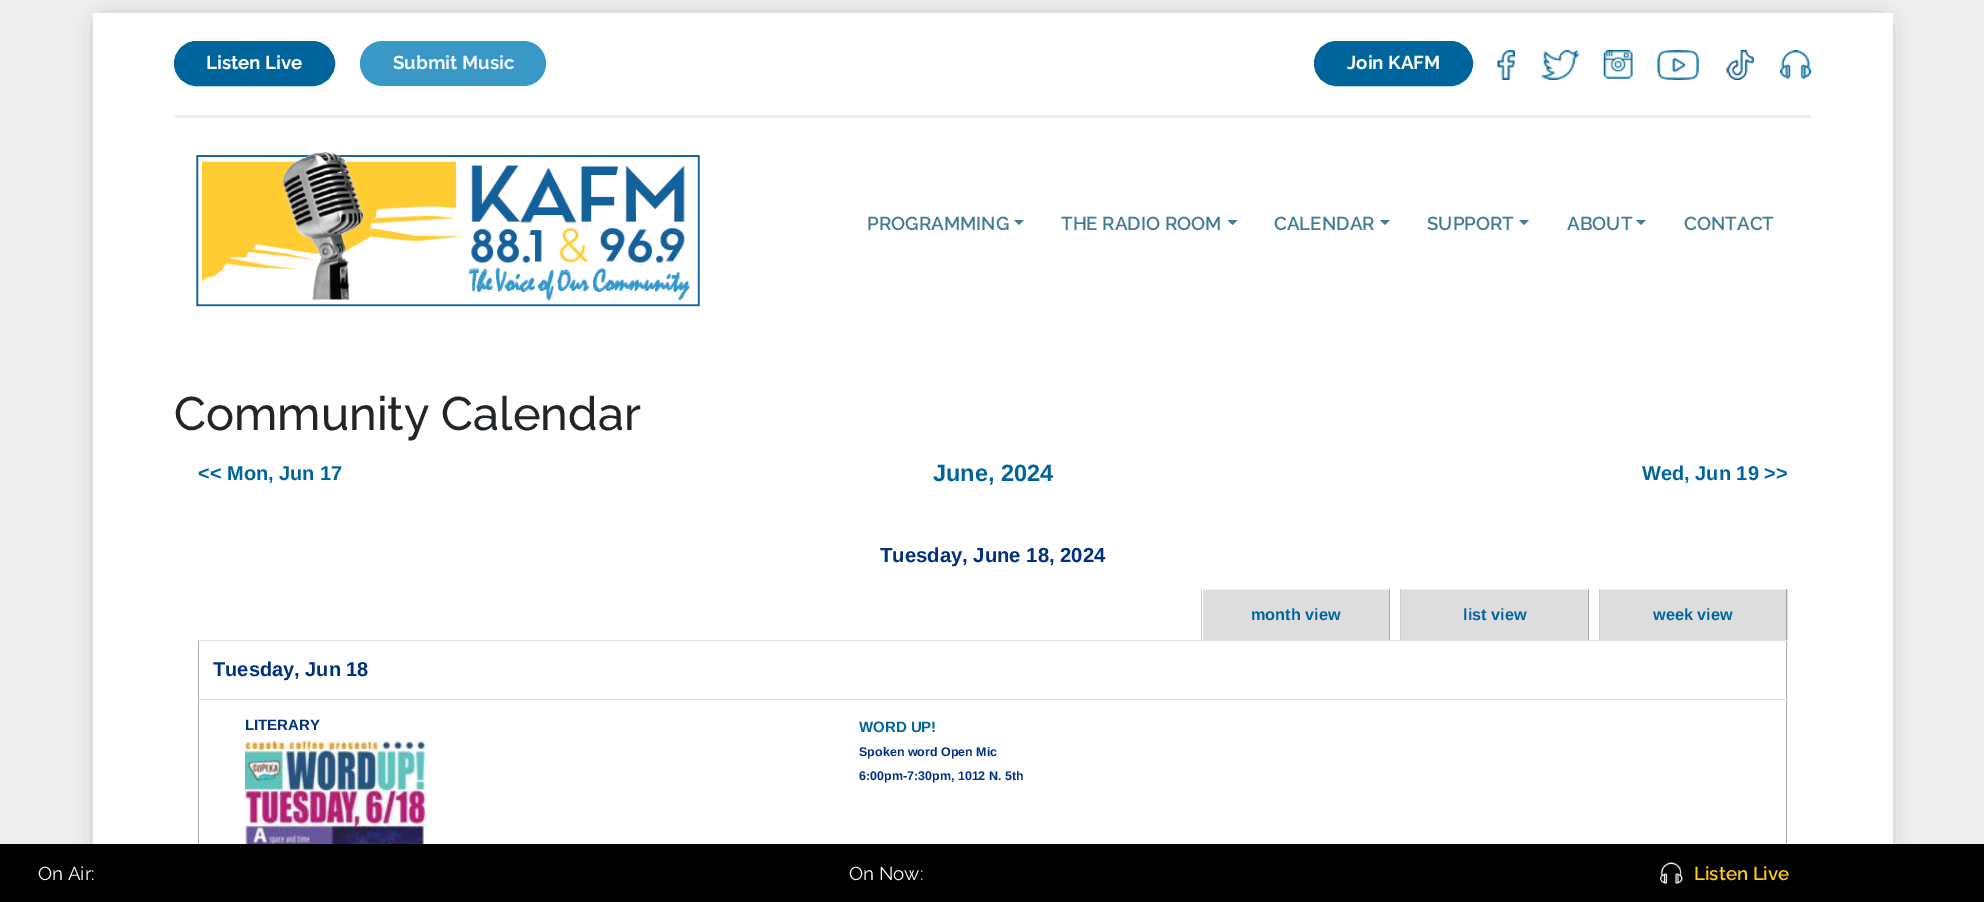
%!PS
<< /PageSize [1984 902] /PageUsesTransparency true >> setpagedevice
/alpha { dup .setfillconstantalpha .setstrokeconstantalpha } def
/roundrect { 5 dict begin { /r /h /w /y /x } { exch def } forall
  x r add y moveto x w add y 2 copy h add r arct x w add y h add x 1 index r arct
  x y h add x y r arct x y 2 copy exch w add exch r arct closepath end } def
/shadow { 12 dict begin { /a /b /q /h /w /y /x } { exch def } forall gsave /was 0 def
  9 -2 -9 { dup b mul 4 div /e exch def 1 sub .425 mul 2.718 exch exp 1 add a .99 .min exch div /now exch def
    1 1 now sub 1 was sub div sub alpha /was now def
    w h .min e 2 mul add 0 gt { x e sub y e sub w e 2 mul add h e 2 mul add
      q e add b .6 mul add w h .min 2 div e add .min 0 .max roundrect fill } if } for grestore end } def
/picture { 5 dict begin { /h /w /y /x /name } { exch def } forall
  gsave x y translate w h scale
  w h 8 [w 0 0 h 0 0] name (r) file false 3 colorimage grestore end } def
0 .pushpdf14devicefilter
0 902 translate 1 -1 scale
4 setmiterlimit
0.933 setgray
0 0 1984 902 rectfill
0.514 setgray
105 25 1775 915 0 12.5 1 shadow
1 setgray
93 13 1800 831 rectfill
0.933 setgray
174 115 1637 3 rectfill
0 0.396 0.608 setrgbcolor
174.5 41.5 160 44 22 roundrect gsave fill grestore
stroke
/Raleway-Bold [18.75 0 0 -18.75 0 0] selectfont
1 setgray
206 69 moveto (Listen Live) show
0.224 0.596 0.776 setrgbcolor
360 41 186 45 22.5 roundrect fill
0.941 0.973 1 setrgbcolor
393 69 moveto (Submit Music) show
0 0.396 0.608 setrgbcolor
1314.5 41.5 158 44 22 roundrect gsave fill grestore
stroke
1 setgray
1347 69 moveto (Join KAFM) show
(img1.rgb) 1497 50 18 30 picture
(img2.rgb) 1541 50 38 30 picture
(img3.rgb) 1603 50 30 29 picture
(img4.rgb) 1657 50 42 30 picture
(img5.rgb) 1726 50 28 30 picture
(img6.rgb) 1780 50 32 29 picture
(img7.rgb) 196 152 504 155 picture
/Raleway-SemiBold [18.75 0 0 -18.75 0 0] selectfont
0.263 0.486 0.573 setrgbcolor
867 230 moveto (PROGRAMMING) show
newpath 1014 220 moveto 1024 220 lineto 1019 225 lineto closepath fill
1061 230 moveto (THE RADIO ROOM) show
newpath 1227.5 220 moveto 1237.5 220 lineto 1232.5 225 lineto closepath fill
1274 230 moveto (CALENDAR) show
newpath 1380 220 moveto 1390 220 lineto 1385 225 lineto closepath fill
1427 230 moveto (SUPPORT) show
newpath 1519 220 moveto 1529 220 lineto 1524 225 lineto closepath fill
1567 230 moveto (ABOUT) show
newpath 1636 220 moveto 1646 220 lineto 1641 225 lineto closepath fill
1684 230 moveto (CONTACT) show
/Raleway-Medium [46.9 0 0 -46.9 0 0] selectfont
0.129 0.145 0.161 setrgbcolor
174 430 moveto (Community Calendar) show
/LiberationSans-Bold [20 0 0 -20 0 0] selectfont
0 0.396 0.608 setrgbcolor
198 480 moveto (<< Mon, Jun 17) show
/LiberationSans-Bold [23.5 0 0 -23.5 0 0] selectfont
933 481 moveto (June, 2024) show
/LiberationSans-Bold [20 0 0 -20 0 0] selectfont
1642 480 moveto (Wed, Jun 19 >>) show
/LiberationSans-Bold [20.25 0 0 -20.25 0 0] selectfont
0 0.188 0.502 setrgbcolor
880 562 moveto (Tuesday, June 18, 2024) show
0.867 setgray
1203 590 186 50 rectfill
0.933 setgray
1201 589 189 1 rectfill
0.667 setgray
1389 589 1 51 rectfill
0.8 setgray
1201 589 1 51 rectfill
/LiberationSans-Bold [16.25 0 0 -16.25 0 0] selectfont
0 0.396 0.608 setrgbcolor
1251 620 moveto (month view) show
0.867 setgray
1401 590 187 50 rectfill
0.933 setgray
1400 589 189 1 rectfill
0.667 setgray
1588 589 1 51 rectfill
0.8 setgray
1400 589 1 51 rectfill
0 0.396 0.608 setrgbcolor
1463 620 moveto (list view) show
0.867 setgray
1600 590 188 50 rectfill
0.933 setgray
1599 589 189 1 rectfill
0.667 setgray
1786 589 1 255 rectfill
0.8 setgray
1599 589 1 51 rectfill
0 0.396 0.608 setrgbcolor
1653 620 moveto (week view) show
0.667 setgray
198 640 1 204 rectfill
0.871 0.886 0.902 setrgbcolor
198 640 1590 1 rectfill
/LiberationSans-Bold [20 0 0 -20 0 0] selectfont
0 0.188 0.502 setrgbcolor
213 676 moveto (Tuesday, Jun 18) show
/LiberationSans-Bold [15 0 0 -15 0 0] selectfont
245 730 moveto (LITERARY) show
(img8.rgb) 245 740 180 104 picture
0.871 0.886 0.902 setrgbcolor
198 699 1590 1 rectfill
0 0.396 0.608 setrgbcolor
859 732 moveto (WORD UP!) show
/LiberationSans-Bold [12.5 0 0 -12.5 0 0] selectfont
0 0.188 0.502 setrgbcolor
859 756 moveto (Spoken word Open Mic) show
859 780 moveto (6:00pm-7:30pm, 1012 N. 5th) show
0 setgray
0 844 1984 58 rectfill
/Raleway-Regular [18.75 0 0 -18.75 0 0] selectfont
1 setgray
38 880 moveto (On Air:) show
849 880 moveto (On Now:) show
(img9.rgb) 1660 862 23 22 picture
/Raleway-SemiBold [18.75 0 0 -18.75 0 0] selectfont
1 0.804 0.063 setrgbcolor
1694 880 moveto (Listen Live) show
.poppdf14devicefilter showpage
